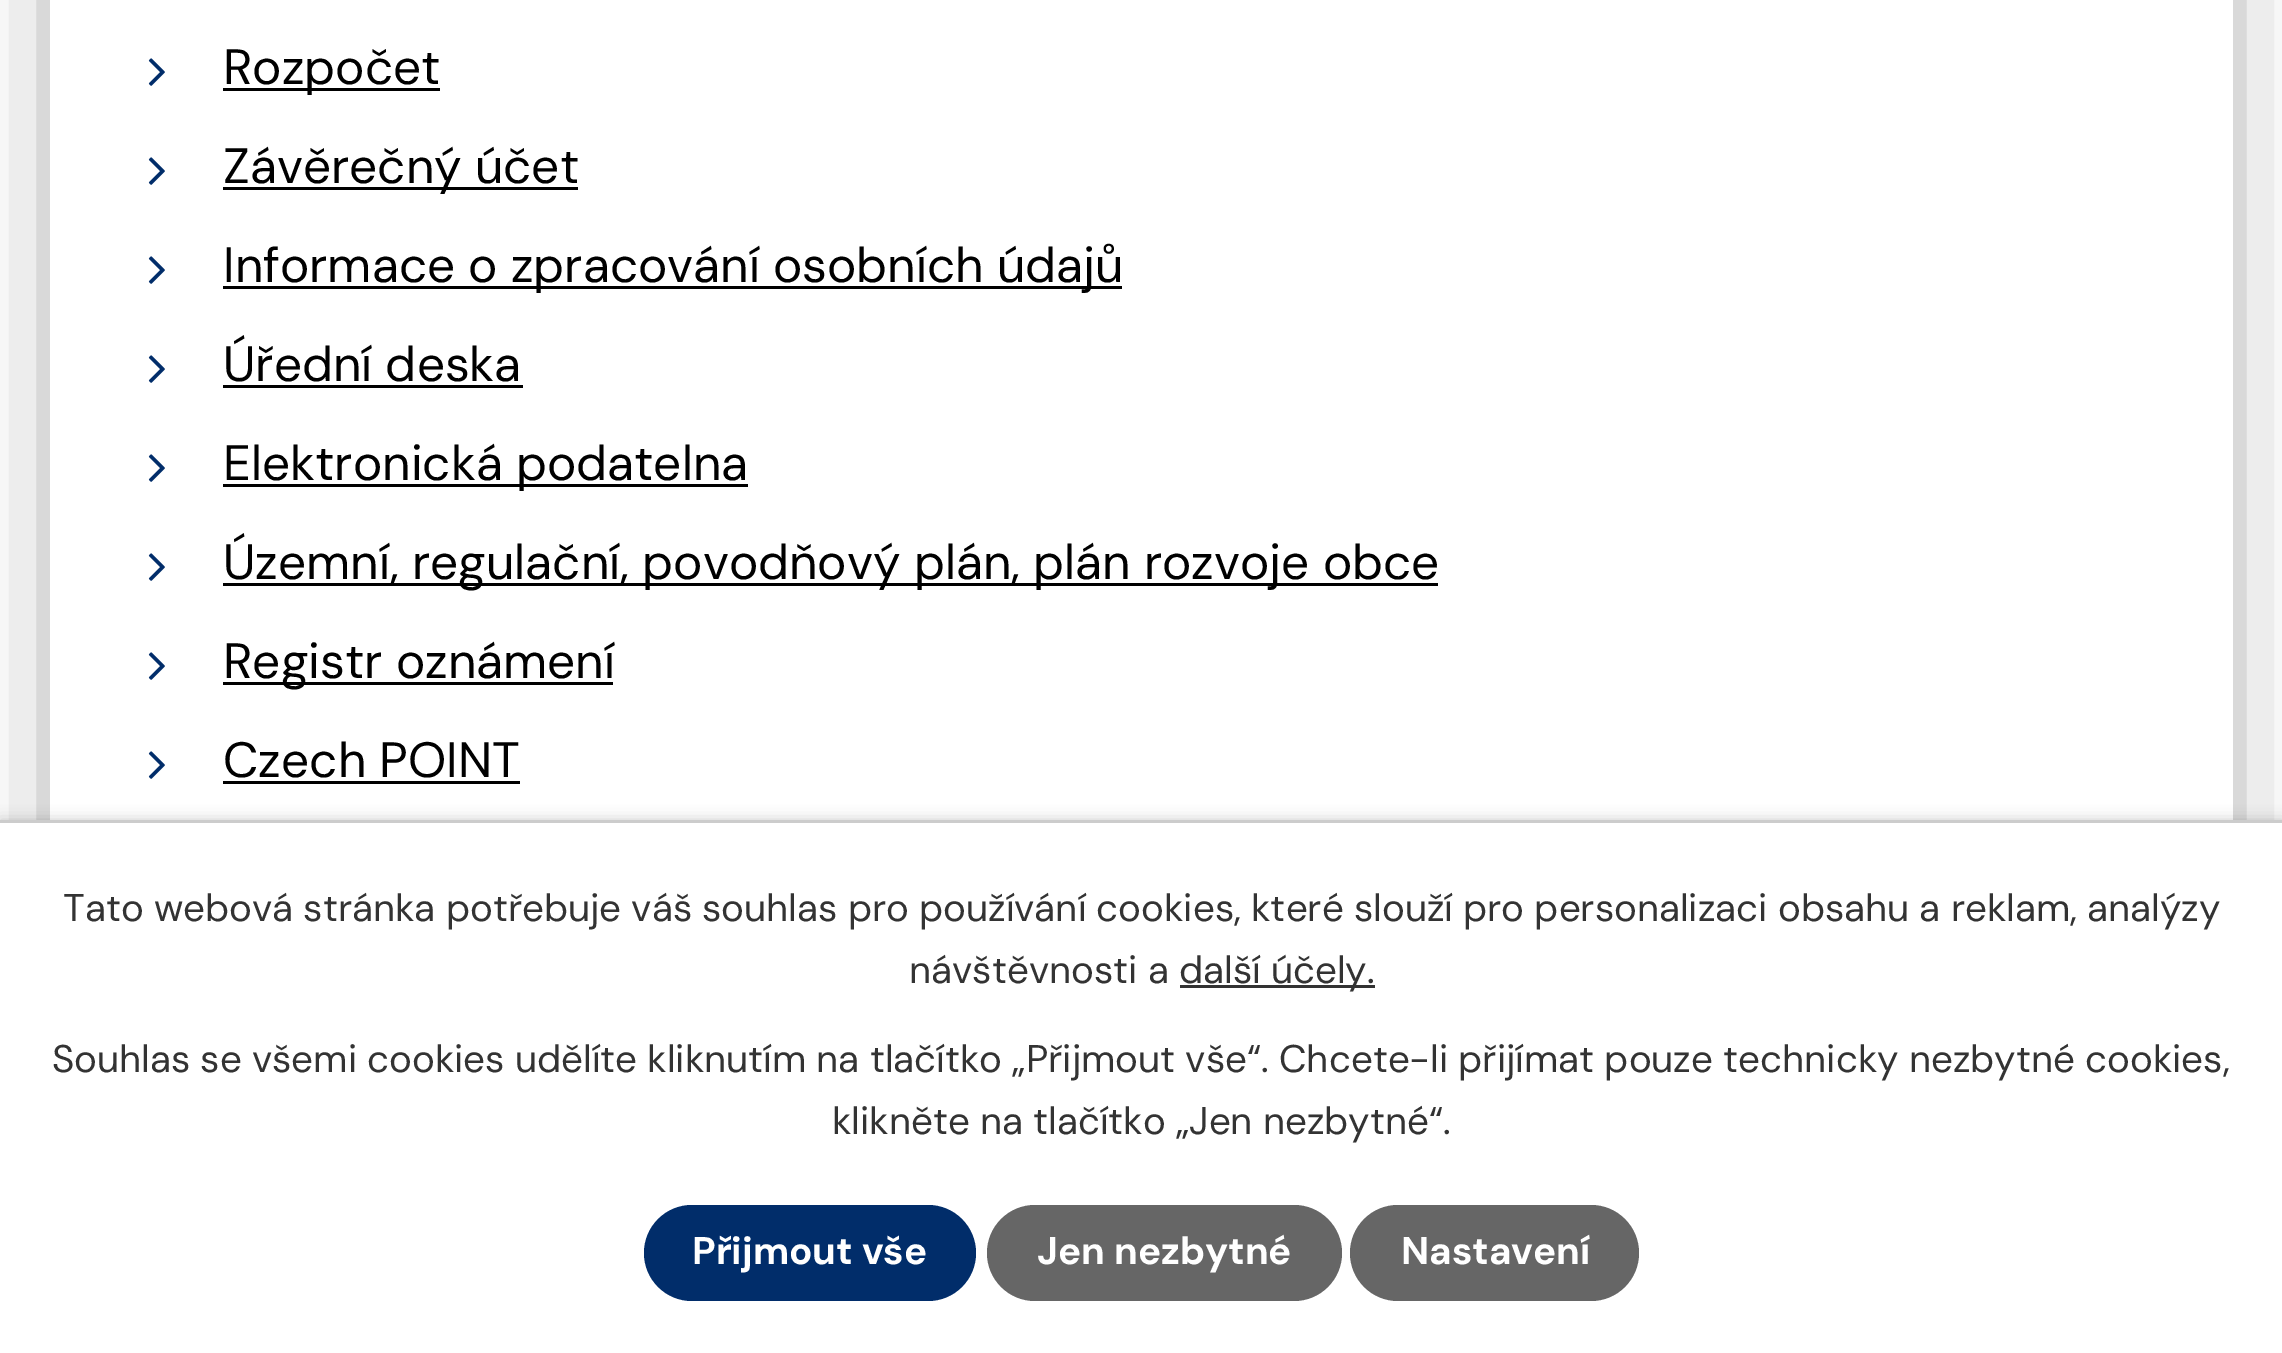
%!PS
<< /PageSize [2282 1353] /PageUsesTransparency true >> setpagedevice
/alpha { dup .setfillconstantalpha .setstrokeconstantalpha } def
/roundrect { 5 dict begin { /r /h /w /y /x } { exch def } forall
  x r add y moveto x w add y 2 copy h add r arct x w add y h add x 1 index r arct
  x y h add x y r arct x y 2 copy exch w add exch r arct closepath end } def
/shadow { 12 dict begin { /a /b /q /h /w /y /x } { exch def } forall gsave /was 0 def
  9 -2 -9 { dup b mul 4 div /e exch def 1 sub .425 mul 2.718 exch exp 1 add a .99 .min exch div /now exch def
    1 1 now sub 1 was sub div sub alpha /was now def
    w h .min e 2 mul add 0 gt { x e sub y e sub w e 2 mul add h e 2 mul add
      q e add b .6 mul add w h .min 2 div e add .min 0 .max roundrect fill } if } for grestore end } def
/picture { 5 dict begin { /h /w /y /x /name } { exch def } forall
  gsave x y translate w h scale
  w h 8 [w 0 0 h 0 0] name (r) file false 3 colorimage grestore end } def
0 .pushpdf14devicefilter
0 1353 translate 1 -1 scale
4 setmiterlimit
1 setgray
0 0 2282 1353 rectfill
0 setgray
105 -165 2073 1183 0 55 1 shadow
1 setgray
50 0 2183 820 rectfill
(img1.rgb) 148 58 17 28 picture
0 setgray
223 88 217 3 rectfill
/DMSans-Regular [49.5 0 0 -49.5 0 0] selectfont
223 84 moveto (Rozpočet) show
(img1.rgb) 148 157 17 28 picture
223 187 355 3 rectfill
223 183 moveto (Závěrečný účet) show
(img1.rgb) 148 256 17 28 picture
223 286 899 3 rectfill
223 282 moveto (Informace o zpracování osobních údajů) show
(img1.rgb) 148 355 17 28 picture
223 381 moveto (Úřední deska) show
223 385 300 3 rectfill
(img1.rgb) 148 454 17 28 picture
223 484 525 3 rectfill
223 480 moveto (Elektronická podatelna) show
(img1.rgb) 148 553 17 28 picture
223 583 1215 3 rectfill
223 579 moveto (Územní, regulační, povodňový plán, plán rozvoje obce) show
(img1.rgb) 148 652 17 28 picture
223 682 390 3 rectfill
223 678 moveto (Registr oznámení) show
(img1.rgb) 148 751 17 28 picture
223 777 moveto (Czech POINT) show
223 781 297 3 rectfill
0 820 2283 533 0 7 0.2 shadow
1 setgray
0 823 2282 530 rectfill
0.8 setgray
0 820 2282 3 rectfill
/DMSans-Regular [38.5 0 0 -38.5 0 0] selectfont
0.2 setgray
63 921 moveto (Tato webová stránka potřebuje váš souhlas pro používání cookies, které slouží pro personalizaci obsahu a reklam, analýzy) show
909 983 moveto (návštěvnosti a) show
1180 985 195 3 rectfill
1179 983 moveto (další účely.) show
52 1072 moveto (Souhlas se všemi cookies udělíte kliknutím na tlačítko „Přijmout vše“. Chcete-li přijímat pouze technicky nezbytné cookies,) show
832 1134 moveto (klikněte na tlačítko „Jen nezbytné“.) show
0.004 0.176 0.416 setrgbcolor
644 1205 332 96 48 roundrect fill
/DMSans-Bold [38.5 0 0 -38.5 0 0] selectfont
1 setgray
692 1264 moveto (Přijmout vše) show
0.4 setgray
987 1205 355 96 48 roundrect fill
1 setgray
1037 1264 moveto (Jen nezbytné) show
0.4 setgray
1350 1205 289 96 48 roundrect fill
1 setgray
1401 1264 moveto (Nastavení) show
.poppdf14devicefilter showpage
